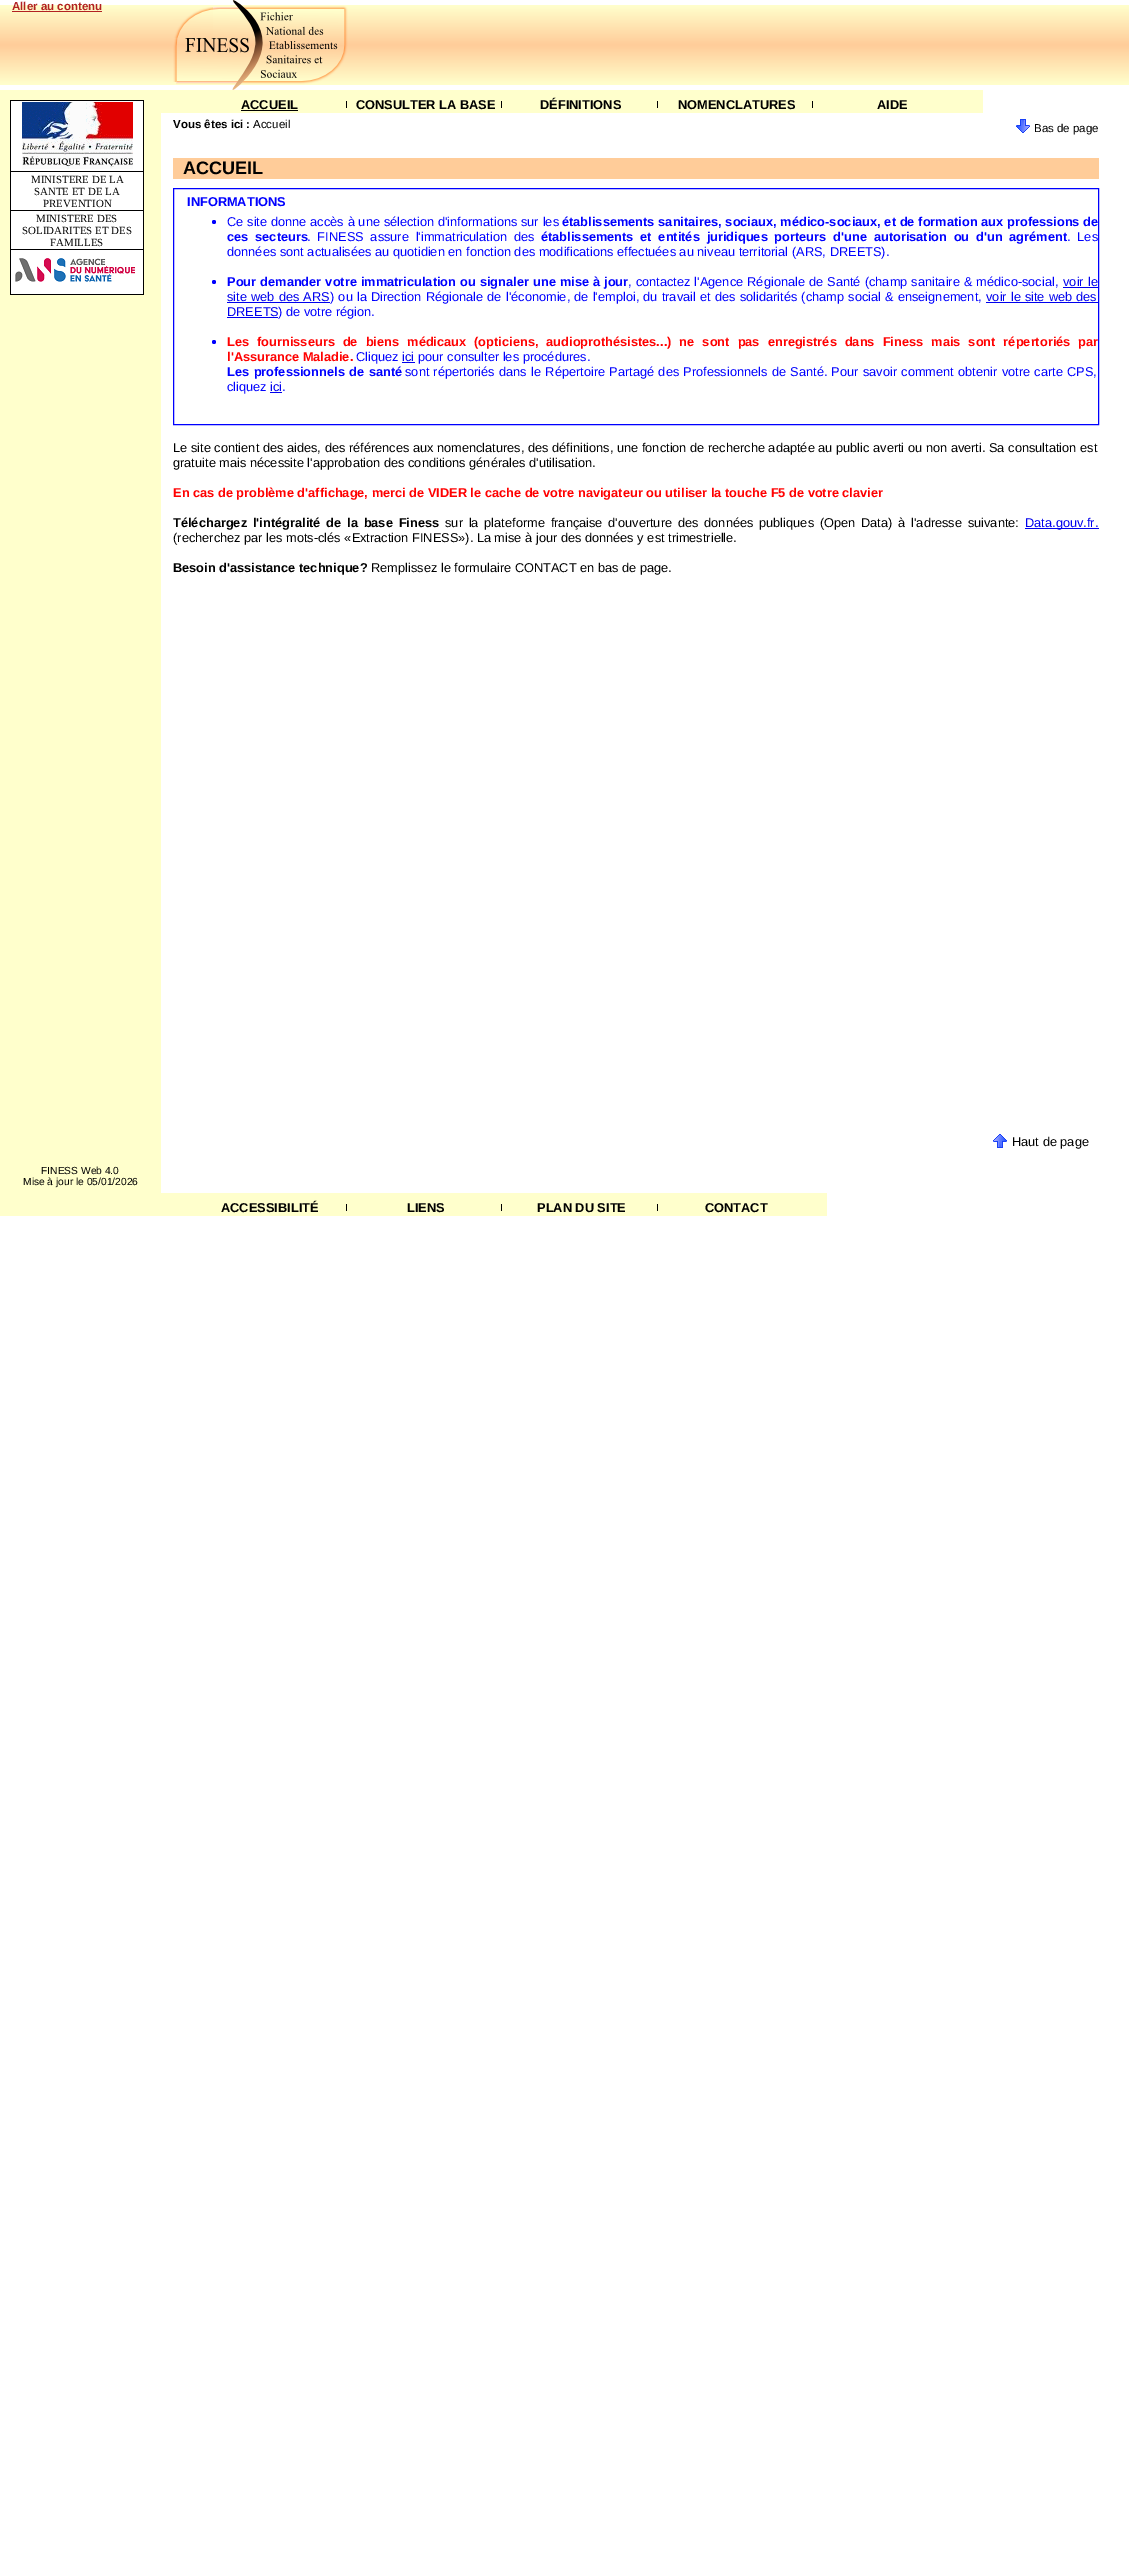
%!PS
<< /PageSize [1129 2566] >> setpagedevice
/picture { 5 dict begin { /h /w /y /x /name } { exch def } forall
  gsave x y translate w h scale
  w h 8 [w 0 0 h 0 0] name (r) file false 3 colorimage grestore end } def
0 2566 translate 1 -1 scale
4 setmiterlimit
1 setgray
0 0 1129 2566 rectfill
(img1.rgb) 0 5 1129 80 picture
/LiberationSans-Bold [11.5 0 0 -11.5 0 0] selectfont
0.698 0.133 0.133 setrgbcolor
12 10 moveto (Aller au contenu) show
12 11 90 1 rectfill
(img2.rgb) 173 0 175 90 picture
1 1 0.8 setrgbcolor
161 90 822 23 rectfill
0 setgray
346 101 1 7 rectfill
/LiberationSans-Bold [12.8 0 0 -12.8 0 0] selectfont
241 109 moveto (ACCUEIL) show
241 110 57 1 rectfill
501 101 1 7 rectfill
356 109 moveto (CONSULTER LA BASE) show
657 101 1 7 rectfill
540 109 moveto (DÉFINITIONS) show
812 101 1 7 rectfill
678 109 moveto (NOMENCLATURES) show
877 109 moveto (AIDE) show
1 1 0.8 setrgbcolor
0 90 161 1103 rectfill
1 setgray
11 101 132 70 rectfill
0 setgray
10 100 134 1 rectfill
10 171 134 1 rectfill
10 210 134 1 rectfill
10 249 134 1 rectfill
143 249 1 46 rectfill
143 210 1 40 rectfill
143 171 1 40 rectfill
143 100 1 72 rectfill
10 294 134 1 rectfill
10 249 1 46 rectfill
10 210 1 40 rectfill
10 171 1 40 rectfill
10 100 1 72 rectfill
(img3.rgb) 22 102 111 67 picture
1 setgray
11 172 132 38 rectfill
/LiberationSerif-Regular [10.9 0 0 -10.9 0 0] selectfont
0 setgray
31 183 moveto (MINISTERE DE LA) show
34 195 moveto (SANTE ET DE LA) show
43 207 moveto (PREVENTION) show
1 setgray
11 211 132 38 rectfill
0 setgray
36 222 moveto (MINISTERE DES) show
22 234 moveto (SOLIDARITES ET DES) show
50 246 moveto (FAMILLES) show
1 setgray
11 250 132 44 rectfill
(img4.rgb) 15 258 120 24 picture
/LiberationSans-Regular [10.25 0 0 -10.25 0 0] selectfont
0 setgray
41 1174 moveto (FINESS Web 4.0) show
23 1185 moveto (Mise à jour le 05/01/2026) show
/LiberationSans-Bold [11.5 0 0 -11.5 0 0] selectfont
173 128 moveto (Vous êtes ici :) show
/LiberationSans-Regular [11.5 0 0 -11.5 0 0] selectfont
253 128 moveto (Accueil) show
(img5.rgb) 1016 119 14 14 picture
1034 132 moveto (Bas de page) show
1 0.8 0.6 setrgbcolor
173 158 926 21 rectfill
/LiberationSans-Bold [18 0 0 -18 0 0] selectfont
0 setgray
183 174 moveto (ACCUEIL) show
0 0 1 setrgbcolor
173.5 188.5 925 236 rectstroke
/LiberationSans-Bold [12.8 0 0 -12.8 0 0] selectfont
187 206 moveto (INFORMATIONS) show
newpath 214 222 2 0 360 arc closepath fill
/LiberationSans-Regular [12.8 0 0 -12.8 0 0] selectfont
227 226 moveto 0.25 0 32 (Ce site donne accès à une sélection d'informations sur les) widthshow
/LiberationSans-Bold [12.8 0 0 -12.8 0 0] selectfont
562 226 moveto 0.25 0 32 (établissements sanitaires, sociaux, médico-sociaux, et de formation aux professions de) widthshow
227 241 moveto 3.25 0 32 (ces secteurs) widthshow
/LiberationSans-Regular [12.8 0 0 -12.8 0 0] selectfont
307 241 moveto 3.25 0 32 (. FINESS assure l'immatriculation des) widthshow
/LiberationSans-Bold [12.8 0 0 -12.8 0 0] selectfont
541 241 moveto 3.25 0 32 (établissements et entités juridiques porteurs d'une autorisation ou d'un agrément) widthshow
/LiberationSans-Regular [12.8 0 0 -12.8 0 0] selectfont
1067 241 moveto 3.25 0 32 (. Les) widthshow
227 256 moveto (données sont actualisées au quotidien en fonction des modifications effectuées au niveau territorial \(ARS, DREETS\).) show
newpath 214 282 2 0 360 arc closepath fill
/LiberationSans-Bold [12.8 0 0 -12.8 0 0] selectfont
227 286 moveto 0.5 0 32 (Pour demander votre immatriculation ou signaler une mise à jour) widthshow
/LiberationSans-Regular [12.8 0 0 -12.8 0 0] selectfont
628 286 moveto 0.5 0 32 (, contactez l'Agence Régionale de Santé \(champ sanitaire & médico-social,) widthshow
0 0 0.933 setrgbcolor
1063 286 moveto 1 0 32 (voir le) widthshow
1063 287 35 1 rectfill
227 301 moveto 0.5 0 32 (site web des ARS) widthshow
227 302 103 1 rectfill
0 0 1 setrgbcolor
330 301 moveto 0.6 0 32 (\) ou la Direction Régionale de l'économie, de l'emploi, du travail et des solidarités \(champ social & enseignement,) widthshow
0 0 0.933 setrgbcolor
986 301 moveto 0.5 0 32 (voir le site web des) widthshow
986 302 112 1 rectfill
227 316 moveto (DREETS) show
227 317 51 1 rectfill
0 0 1 setrgbcolor
278 316 moveto (\) de votre région.) show
newpath 214 342 2 0 360 arc closepath fill
/LiberationSans-Bold [12.8 0 0 -12.8 0 0] selectfont
1 0 0 setrgbcolor
227 346 moveto 4.5 0 32 (Les fournisseurs de biens médicaux \(opticiens, audioprothésistes...\) ne sont pas enregistrés dans Finess mais sont répertoriés par) widthshow
227 361 moveto (l'Assurance Maladie.) show
/LiberationSans-Regular [12.8 0 0 -12.8 0 0] selectfont
0 0 1 setrgbcolor
356 361 moveto (Cliquez) show
0 0 0.933 setrgbcolor
402 361 moveto (ici) show
402 362 13 1 rectfill
0 0 1 setrgbcolor
418 361 moveto (pour consulter les procédures.) show
/LiberationSans-Bold [12.8 0 0 -12.8 0 0] selectfont
227 376 moveto 1 0 32 (Les professionnels de santé) widthshow
/LiberationSans-Regular [12.8 0 0 -12.8 0 0] selectfont
405 376 moveto 0.75 0 32 (sont répertoriés dans le Répertoire Partagé des Professionnels de Santé. Pour savoir comment obtenir votre carte CPS,) widthshow
227 391 moveto (cliquez) show
0 0 0.933 setrgbcolor
270 391 moveto (ici) show
270 392 12 1 rectfill
0 0 1 setrgbcolor
282 391 moveto (.) show
0 setgray
173 452 moveto (Le site contient des aides, des références aux nomenclatures, des définitions, une fonction de recherche adaptée au public averti ou non averti. Sa consultation est) show
173 467 moveto (gratuite mais nécessite l'approbation des conditions générales d'utilisation.) show
/LiberationSans-Bold [12.8 0 0 -12.8 0 0] selectfont
1 0 0 setrgbcolor
173 497 moveto (En cas de problème d'affichage, merci de VIDER le cache de votre navigateur ou utiliser la touche F5 de votre clavier) show
0 setgray
173 527 moveto 2.25 0 32 (Téléchargez l'intégralité de la base Finess) widthshow
/LiberationSans-Regular [12.8 0 0 -12.8 0 0] selectfont
445 527 moveto 2.25 0 32 (sur la plateforme française d'ouverture des données publiques \(Open Data\) à l'adresse suivante:) widthshow
0 0 0.933 setrgbcolor
1025 528 74 1 rectfill
1025 527 moveto (Data.gouv.fr.) show
0 setgray
173 542 moveto (\(recherchez par les mots-clés «Extraction FINESS»\). La mise à jour des données y est trimestrielle.) show
/LiberationSans-Bold [12.8 0 0 -12.8 0 0] selectfont
173 572 moveto (Besoin d'assistance technique?) show
/LiberationSans-Regular [12.8 0 0 -12.8 0 0] selectfont
371 572 moveto (Remplissez le formulaire CONTACT en bas de page.) show
(img6.rgb) 993 1134 14 14 picture
1012 1146 moveto (Haut de page) show
1 1 0.8 setrgbcolor
0 1193 827 23 rectfill
0 setgray
346 1204 1 7 rectfill
/LiberationSans-Bold [12.8 0 0 -12.8 0 0] selectfont
221 1212 moveto (ACCESSIBILITÉ) show
501 1204 1 7 rectfill
407 1212 moveto (LIENS) show
657 1204 1 7 rectfill
537 1212 moveto (PLAN DU SITE) show
705 1212 moveto (CONTACT) show
showpage
